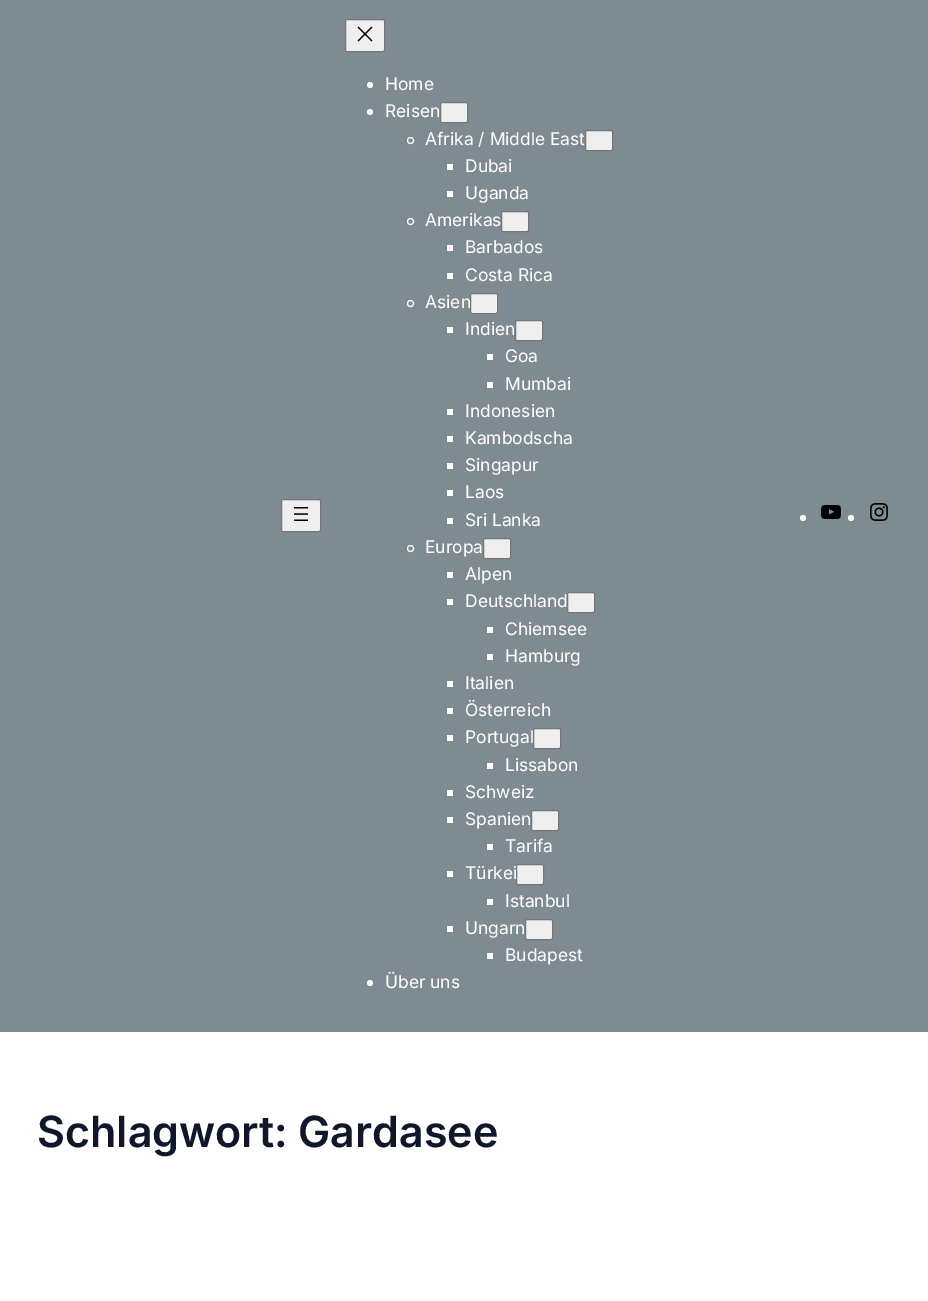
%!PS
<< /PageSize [928 1301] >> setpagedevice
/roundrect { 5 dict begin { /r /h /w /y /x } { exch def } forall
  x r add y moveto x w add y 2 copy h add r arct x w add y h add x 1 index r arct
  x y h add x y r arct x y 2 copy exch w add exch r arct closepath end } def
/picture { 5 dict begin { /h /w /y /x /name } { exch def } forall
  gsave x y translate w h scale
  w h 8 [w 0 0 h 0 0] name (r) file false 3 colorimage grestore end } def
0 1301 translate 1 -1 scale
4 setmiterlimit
1 setgray
0 0 928 1301 rectfill
0.494 0.545 0.573 setrgbcolor
0 0 928 1032 rectfill
0.937 setgray
281.5 499.5 39 32 1.5 roundrect gsave fill grestore
0.463 setgray
stroke
(img1.rgb) 294 507 14 14 picture
0.937 setgray
345.5 19.5 39 32 1.5 roundrect gsave fill grestore
0.463 setgray
stroke
(img2.rgb) 357 26 16 16 picture
1 setgray
newpath 370 85 3 0 360 arc closepath fill
/Inter-Regular [17.4 0 0 -17.4 0 0] selectfont
385 90 moveto (Home) show
newpath 370 112 3 0 360 arc closepath fill
385 117 moveto (Reisen) show
0.937 setgray
440.5 102.5 27 20 1.5 roundrect gsave fill grestore
0.463 setgray
stroke
1 setgray
newpath 410.5 140.5 3 0 360 arc closepath stroke
425 145 moveto (Afrika / Middle East) show
0.937 setgray
585.5 130.5 27 20 1.5 roundrect gsave fill grestore
0.463 setgray
stroke
1 setgray
447 164 6 6 rectfill
465 172 moveto (Dubai) show
447 191 6 6 rectfill
465 199 moveto (Uganda) show
newpath 410.5 221.5 3 0 360 arc closepath stroke
425 226 moveto (Amerikas) show
0.937 setgray
501.5 211.5 27 20 1.5 roundrect gsave fill grestore
0.463 setgray
stroke
1 setgray
447 245 6 6 rectfill
465 253 moveto (Barbados) show
447 273 6 6 rectfill
465 281 moveto (Costa Rica) show
newpath 410.5 303.5 3 0 360 arc closepath stroke
425 308 moveto (Asien) show
0.937 setgray
470.5 293.5 27 20 1.5 roundrect gsave fill grestore
0.463 setgray
stroke
1 setgray
447 327 6 6 rectfill
465 335 moveto (Indien) show
0.937 setgray
515.5 320.5 27 20 1.5 roundrect gsave fill grestore
0.463 setgray
stroke
1 setgray
487 354 6 6 rectfill
505 362 moveto (Goa) show
487 382 6 6 rectfill
505 390 moveto (Mumbai) show
447 409 6 6 rectfill
465 417 moveto (Indonesien) show
447 436 6 6 rectfill
465 444 moveto (Kambodscha) show
447 463 6 6 rectfill
465 471 moveto (Singapur) show
447 490 6 6 rectfill
465 498 moveto (Laos) show
447 518 6 6 rectfill
465 526 moveto (Sri Lanka) show
newpath 410.5 548.5 3 0 360 arc closepath stroke
425 553 moveto (Europa) show
0.937 setgray
483.5 538.5 27 20 1.5 roundrect gsave fill grestore
0.463 setgray
stroke
1 setgray
447 572 6 6 rectfill
465 580 moveto (Alpen) show
447 599 6 6 rectfill
465 607 moveto (Deutschland) show
0.937 setgray
567.5 592.5 27 20 1.5 roundrect gsave fill grestore
0.463 setgray
stroke
1 setgray
487 627 6 6 rectfill
505 635 moveto (Chiemsee) show
487 654 6 6 rectfill
505 662 moveto (Hamburg) show
447 681 6 6 rectfill
465 689 moveto (Italien) show
447 708 6 6 rectfill
465 716 moveto (Österreich) show
447 735 6 6 rectfill
465 743 moveto (Portugal) show
0.937 setgray
533.5 728.5 27 20 1.5 roundrect gsave fill grestore
0.463 setgray
stroke
1 setgray
487 763 6 6 rectfill
505 771 moveto (Lissabon) show
447 790 6 6 rectfill
465 798 moveto (Schweiz) show
447 817 6 6 rectfill
465 825 moveto (Spanien) show
0.937 setgray
531.5 810.5 27 20 1.5 roundrect gsave fill grestore
0.463 setgray
stroke
1 setgray
487 844 6 6 rectfill
505 852 moveto (Tarifa) show
447 871 6 6 rectfill
465 879 moveto (Türkei) show
0.937 setgray
516.5 864.5 27 20 1.5 roundrect gsave fill grestore
0.463 setgray
stroke
1 setgray
487 899 6 6 rectfill
505 907 moveto (Istanbul) show
447 926 6 6 rectfill
465 934 moveto (Ungarn) show
0.937 setgray
525.5 919.5 27 20 1.5 roundrect gsave fill grestore
0.463 setgray
stroke
1 setgray
487 953 6 6 rectfill
505 961 moveto (Budapest) show
newpath 370 983 3 0 360 arc closepath fill
385 988 moveto (Über uns) show
newpath 803 518 3 0 360 arc closepath fill
(img3.rgb) 821 505 20 14 picture
newpath 851 518 3 0 360 arc closepath fill
(img4.rgb) 870 503 18 18 picture
/Inter-SemiBold [43 0 0 -43 0 0] selectfont
0.059 0.09 0.165 setrgbcolor
37 1147 moveto (Schlagwort: Gardasee) show
showpage
